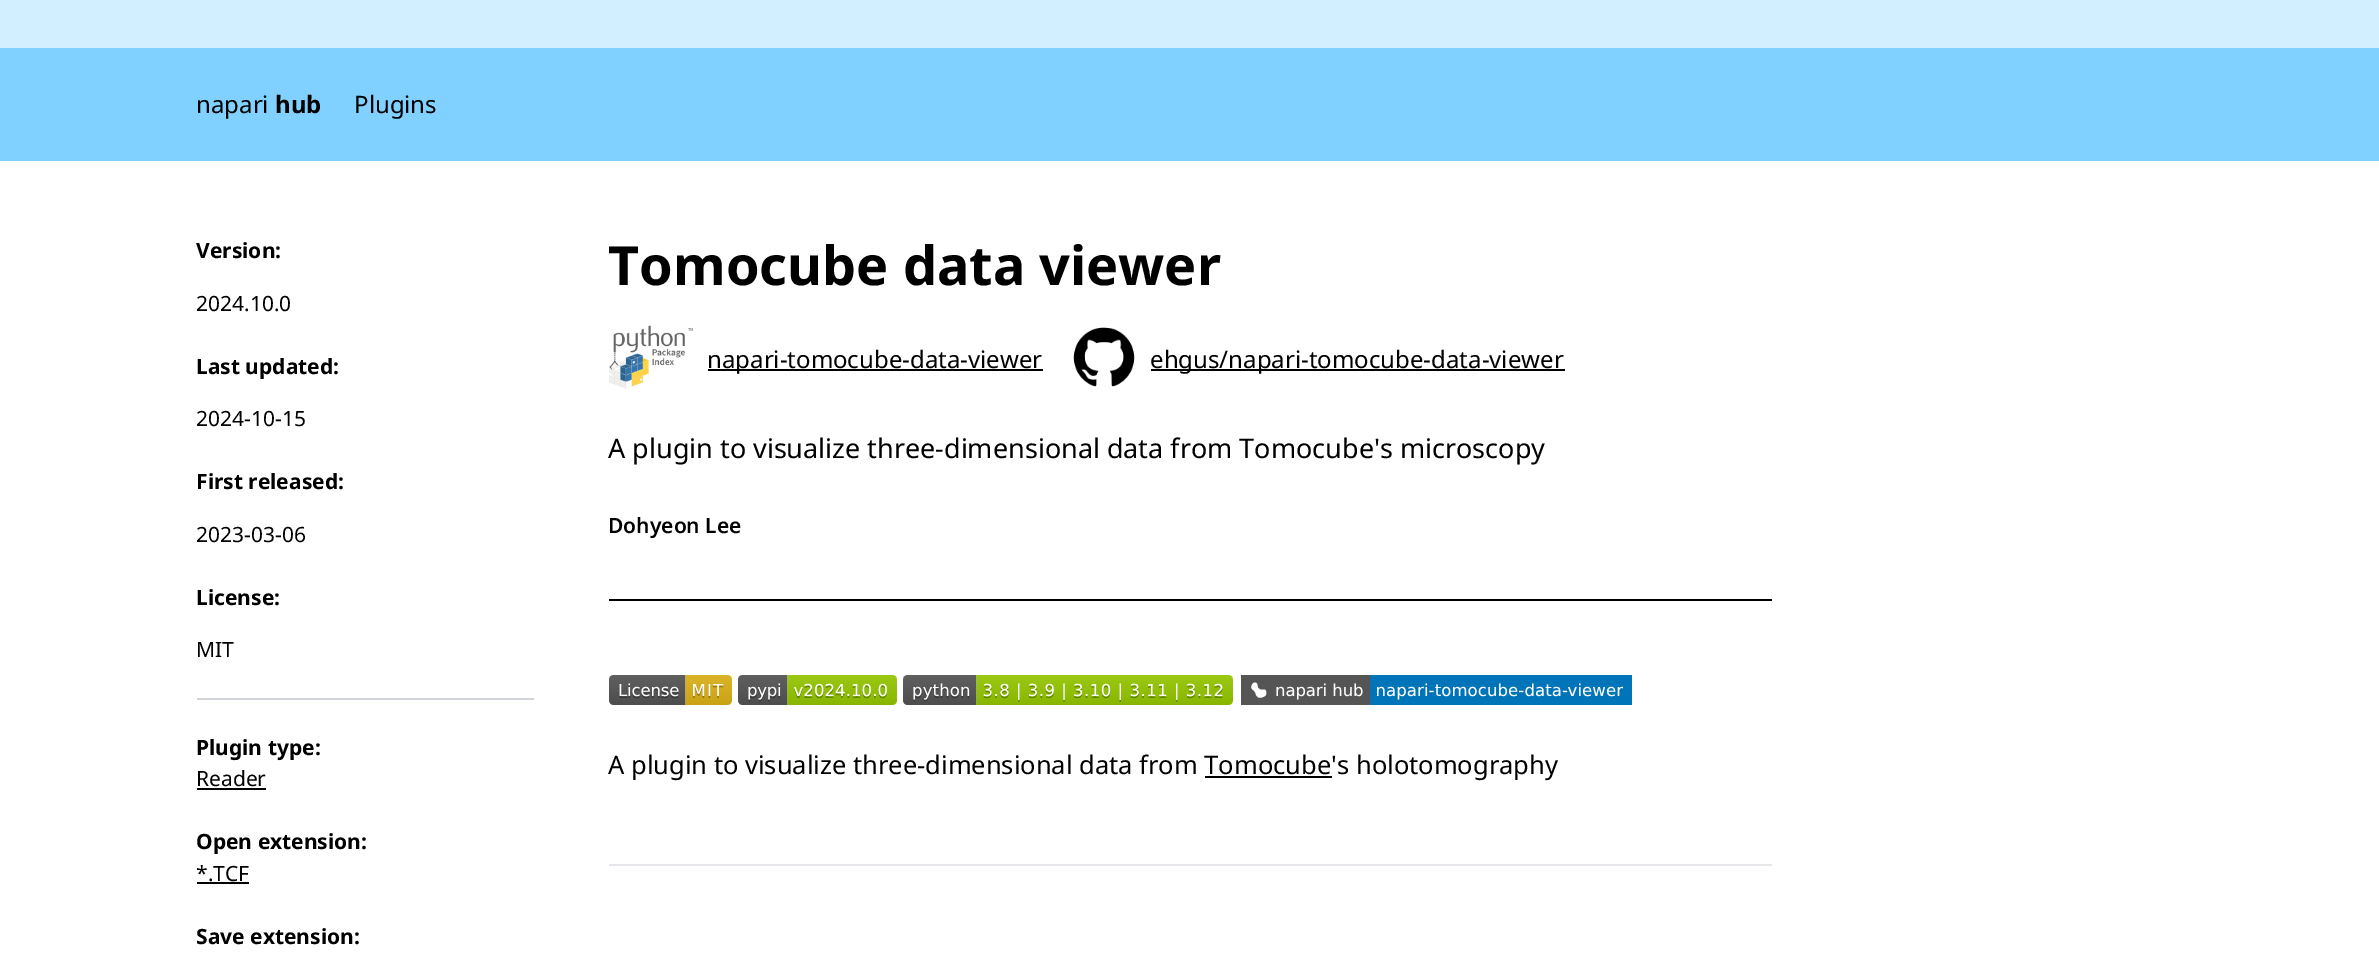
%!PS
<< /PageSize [2379 956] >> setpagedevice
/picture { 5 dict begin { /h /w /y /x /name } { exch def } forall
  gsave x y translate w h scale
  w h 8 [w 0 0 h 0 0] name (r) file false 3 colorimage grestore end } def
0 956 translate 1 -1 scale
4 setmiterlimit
1 setgray
0 0 2379 956 rectfill
0.824 0.937 1 setrgbcolor
0 0 2379 48 rectfill
0.502 0.82 1 setrgbcolor
0 48 2379 113 rectfill
/NotoSans-Regular [24 0 0 -24 0 0] selectfont
0 setgray
196 113 moveto (napari) show
/NotoSans-Bold [24 0 0 -24 0 0] selectfont
275 113 moveto (hub) show
/NotoSans-Regular [24 0 0 -24 0 0] selectfont
354 113 moveto (Plugins) show
/NotoSans-Bold [21 0 0 -21 0 0] selectfont
196 258 moveto (Version:) show
/NotoSans-Regular [21 0 0 -21 0 0] selectfont
196 311 moveto (2024.10.0) show
/NotoSans-Bold [21 0 0 -21 0 0] selectfont
196 374 moveto (Last updated:) show
/NotoSans-Regular [21 0 0 -21 0 0] selectfont
196 426 moveto (2024-10-15) show
/NotoSans-Bold [21 0 0 -21 0 0] selectfont
196 489 moveto (First released:) show
/NotoSans-Regular [21 0 0 -21 0 0] selectfont
196 542 moveto (2023-03-06) show
/NotoSans-Bold [21 0 0 -21 0 0] selectfont
196 605 moveto (License:) show
/NotoSans-Regular [21 0 0 -21 0 0] selectfont
196 657 moveto (MIT) show
0.82 0.835 0.859 setrgbcolor
197 698 337 2 rectfill
/NotoSans-Bold [21 0 0 -21 0 0] selectfont
0 setgray
196 755 moveto (Plugin type:) show
/NotoSans-Regular [21 0 0 -21 0 0] selectfont
196 786 moveto (Reader) show
197 788 69 2 rectfill
/NotoSans-Bold [21 0 0 -21 0 0] selectfont
196 849 moveto (Open extension:) show
/NotoSans-Regular [21 0 0 -21 0 0] selectfont
196 881 moveto (*.TCF) show
197 882 52 2 rectfill
/NotoSans-Bold [21 0 0 -21 0 0] selectfont
196 944 moveto (Save extension:) show
/NotoSans-Bold [54 0 0 -54 0 0] selectfont
608 285 moveto (Tomocube data viewer) show
(img1.rgb) 609 325 84 64 picture
708 369 335 2 rectfill
/NotoSans-Regular [24 0 0 -24 0 0] selectfont
707 368 moveto (napari-tomocube-data-viewer) show
(img2.rgb) 1073 327 62 60 picture
1151 369 414 2 rectfill
1150 368 moveto (ehgus/napari-tomocube-data-viewer) show
/NotoSans-Regular [27 0 0 -27 0 0] selectfont
608 458 moveto (A plugin to visualize three-dimensional data from Tomocube's microscopy) show
/NotoSans-SemiBold [21 0 0 -21 0 0] selectfont
608 533 moveto (Dohyeon Lee) show
609 599 1163 2 rectfill
(img3.rgb) 609 675 123 30 picture
(img4.rgb) 738 675 159 30 picture
(img5.rgb) 903 675 330 30 picture
(img6.rgb) 1241 675 391 30 picture
/NotoSans-Regular [25.5 0 0 -25.5 0 0] selectfont
608 774 moveto (A plugin to visualize three-dimensional data from Tomocube's holotomography) show
1205 776 127 2 rectfill
0.898 0.906 0.922 setrgbcolor
609 864 1163 2 rectfill
showpage
